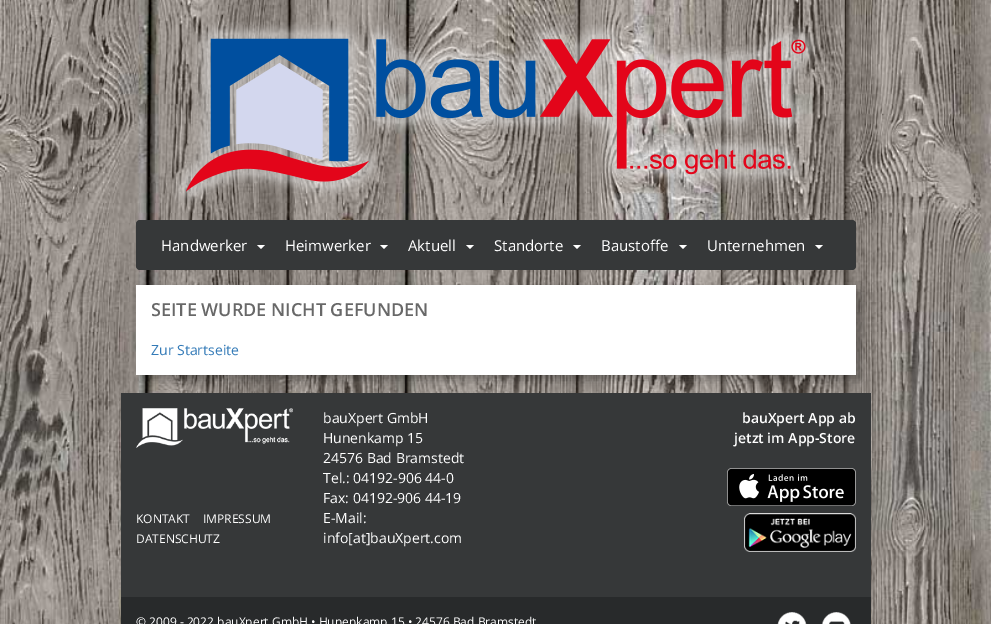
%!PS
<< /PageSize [991 624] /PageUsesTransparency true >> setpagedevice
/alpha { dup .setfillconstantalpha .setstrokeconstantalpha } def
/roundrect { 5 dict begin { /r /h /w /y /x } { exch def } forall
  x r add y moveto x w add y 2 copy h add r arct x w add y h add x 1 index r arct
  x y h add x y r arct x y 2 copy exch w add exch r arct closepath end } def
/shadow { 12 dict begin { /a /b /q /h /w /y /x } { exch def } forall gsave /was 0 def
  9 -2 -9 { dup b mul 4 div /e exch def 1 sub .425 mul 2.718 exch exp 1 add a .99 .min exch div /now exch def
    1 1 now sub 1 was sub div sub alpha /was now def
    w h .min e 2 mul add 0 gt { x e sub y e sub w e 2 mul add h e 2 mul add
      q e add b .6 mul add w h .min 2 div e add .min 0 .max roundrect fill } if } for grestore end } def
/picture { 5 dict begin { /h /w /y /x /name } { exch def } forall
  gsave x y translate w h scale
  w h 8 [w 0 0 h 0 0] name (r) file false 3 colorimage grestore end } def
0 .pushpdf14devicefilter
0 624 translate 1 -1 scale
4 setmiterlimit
1 setgray
0 0 991 624 rectfill
(img1.rgb) 0 0 991 624 picture
(img2.rgb) 173 22 647 183 picture
0.212 0.22 0.224 setrgbcolor
136 220 720 50 4 roundrect fill
/OpenSans-Regular [15 0 0 -15 0 0] selectfont
1 setgray
161 251 moveto (Handwerker) show
newpath 257 245 moveto 265 245 lineto 261 249 lineto closepath fill
285 251 moveto (Heimwerker) show
newpath 380 245 moveto 388 245 lineto 384 249 lineto closepath fill
408 251 moveto (Aktuell) show
newpath 466 245 moveto 474 245 lineto 470 249 lineto closepath fill
494 251 moveto (Standorte) show
newpath 573 245 moveto 581 245 lineto 577 249 lineto closepath fill
601 251 moveto (Baustoffe) show
newpath 679 245 moveto 687 245 lineto 683 249 lineto closepath fill
707 251 moveto (Unternehmen) show
newpath 815 245 moveto 823 245 lineto 819 249 lineto closepath fill
0.212 0.22 0.224 setrgbcolor
121 393 750 204 rectfill
0 setgray
141 290 720 90 0 5 0.3 shadow
1 setgray
136 285 720 90 rectfill
/OpenSans-SemiBold [18 0 0 -18 0 0] selectfont
0.408 setgray
151 316 moveto (SEITE WURDE NICHT GEFUNDEN) show
/OpenSans-Regular [14 0 0 -14 0 0] selectfont
0.2 0.478 0.718 setrgbcolor
151 355 moveto (Zur Startseite) show
1 setgray
323 423 moveto (bauXpert GmbH) show
323 443 moveto (Hunenkamp 15) show
323 463 moveto (24576 Bad Bramstedt) show
323 483 moveto (Tel.: 04192-906 44-0) show
323 503 moveto (Fax: 04192-906 44-19) show
323 523 moveto (E-Mail:) show
323 543 moveto (info[at]bauXpert.com) show
/OpenSans-SemiBold [14 0 0 -14 0 0] selectfont
742 423 moveto (bauXpert App ab) show
734 443 moveto (jetzt im App-Store) show
(img3.rgb) 727 468 129 38 picture
(img4.rgb) 744 513 112 39 picture
(img5.rgb) 136 408 157 40 picture
/OpenSans-Regular [12 0 0 -12 0 0] selectfont
136 523 moveto (KONTAKT) show
203 523 moveto (IMPRESSUM) show
136 543 moveto (DATENSCHUTZ) show
0.157 0.165 0.169 setrgbcolor
121 597 750 27 rectfill
1 setgray
136 626 moveto (© 2009 - 2022 bauXpert GmbH • Hunenkamp 15 • 24576 Bad Bramstedt) show
(img6.rgb) 777 612 30 12 picture
(img7.rgb) 821 612 30 12 picture
.poppdf14devicefilter showpage
